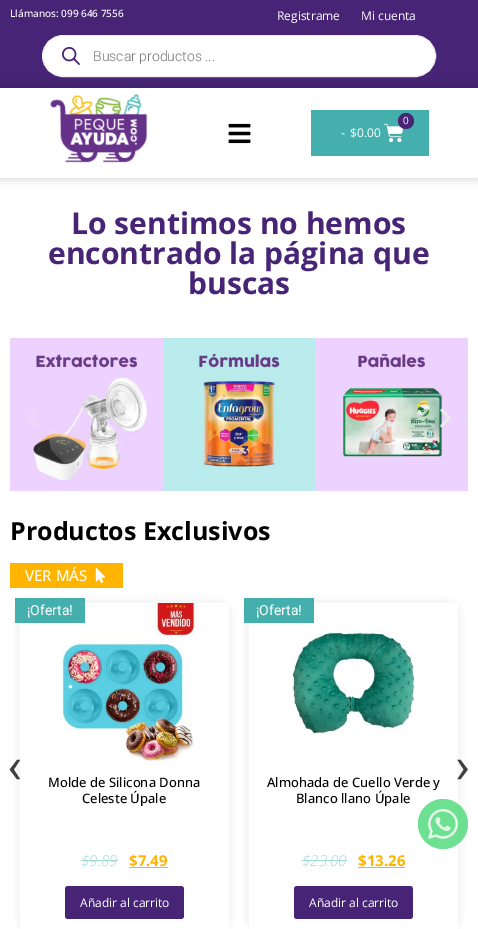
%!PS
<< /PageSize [478 929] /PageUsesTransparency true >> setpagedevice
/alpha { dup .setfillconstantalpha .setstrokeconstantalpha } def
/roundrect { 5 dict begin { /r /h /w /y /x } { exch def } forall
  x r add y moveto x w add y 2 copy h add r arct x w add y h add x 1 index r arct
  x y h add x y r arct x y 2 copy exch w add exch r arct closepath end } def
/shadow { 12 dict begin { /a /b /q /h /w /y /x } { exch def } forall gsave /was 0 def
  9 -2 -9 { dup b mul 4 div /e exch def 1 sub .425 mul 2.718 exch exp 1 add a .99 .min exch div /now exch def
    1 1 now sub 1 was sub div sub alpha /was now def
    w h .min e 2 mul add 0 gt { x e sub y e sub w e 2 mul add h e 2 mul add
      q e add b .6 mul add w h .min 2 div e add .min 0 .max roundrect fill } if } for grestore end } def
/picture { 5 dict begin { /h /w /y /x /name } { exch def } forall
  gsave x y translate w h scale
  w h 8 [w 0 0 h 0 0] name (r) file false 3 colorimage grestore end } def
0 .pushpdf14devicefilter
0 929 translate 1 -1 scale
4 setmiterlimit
1 setgray
0 0 478 929 rectfill
0.278 0.141 0.463 setrgbcolor
0 0 478 88 rectfill
/OpenSans-Medium [10 0 0 -10 0 0] selectfont
1 setgray
10 17 moveto (Llámanos: 099 646 7556) show
/OpenSans-Regular [12 0 0 -12 0 0] selectfont
277 20 moveto (Registrame) show
361 20 moveto (Mi cuenta) show
0.933 setgray
42.5 35.5 393 41 20.5 roundrect stroke
1 setgray
43 36 392 40 20 roundrect fill
(img1.rgb) 62 47 18 18 picture
/Roboto-Light [14 0 0 -14 0 0] selectfont
0.467 setgray
93 61 moveto (Buscar productos ...) show
gsave
newpath 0 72 moveto 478 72 lineto 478 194 lineto 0 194 lineto closepath 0 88 moveto 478 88 lineto 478 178 lineto 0 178 lineto closepath eoclip newpath
0 setgray
0 88 478 90 0 5 0.2 shadow
grestore
(img2.rgb) 50 93 98 70 picture
(img3.rgb) 228 123 23 21 picture
0.271 0.686 0.678 setrgbcolor
311 110 118 46 rectfill
(img4.rgb) 384 123 19 20 picture
0.278 0.141 0.463 setrgbcolor
newpath 406 121 8 0 360 arc closepath fill
/OpenSans-Regular [10 0 0 -10 0 0] selectfont
1 setgray
403 124 moveto (0) show
/OpenSans-Regular [12 0 0 -12 0 0] selectfont
341 137 moveto (-) show
350 137 moveto ($0.00) show
/OpenSans-Bold [30 0 0 -30 0 0] selectfont
0.278 0.141 0.463 setrgbcolor
71 234 moveto (Lo sentimos no hemos) show
48 264 moveto (encontrado la página que) show
188 294 moveto (buscas) show
(img5.rgb) 10 338 153 153 picture
(img6.rgb) 163 338 152 153 picture
(img7.rgb) 315 338 153 153 picture
(img8.rgb) 27 409 11 18 picture
(img9.rgb) 440 408 11 20 picture
/OpenSans-Bold [25 0 0 -25 0 0] selectfont
0 setgray
10 540 moveto (Productos Exclusivos) show
1 0.706 0 setrgbcolor
10 563 113 25 rectfill
/OpenSans-Medium [15 0 0 -15 0 0] selectfont
1 setgray
25 581 moveto (VER MÁS) show
(img10.rgb) 95 568 11 15 picture
/Roboto-Regular [50 0 0 -50 0 0] selectfont
0.251 setgray
7 783 moveto (‹) show
0 setgray
30 613 189 306 0 7.5 0.5 shadow
1 setgray
20 603 209 326 rectfill
(img11.rgb) 61 603 137 159 picture
0.271 0.686 0.678 setrgbcolor
15 598 70 25 rectfill
/Roboto-Regular [14 0 0 -14 0 0] selectfont
1 setgray
27 615 moveto (¡Oferta!) show
/OpenSans-Medium [13 0 0 -13 0 0] selectfont
0 setgray
48 787 moveto (Molde de Silicona Donna) show
82 803 moveto (Celeste Úpale) show
/OpenSans-LightItalic [15 0 0 -15 0 0] selectfont
0.635 0.843 0.839 setrgbcolor
81 866 moveto ($9.89) show
81 860 37 1 rectfill
/OpenSans-Bold [15 0 0 -15 0 0] selectfont
1 0.706 0 setrgbcolor
129 866 moveto ($7.49) show
129 867 39 1 rectfill
0.278 0.141 0.463 setrgbcolor
65 886 119 33 3 roundrect fill
/OpenSans-Regular [12 0 0 -12 0 0] selectfont
1 setgray
80 907 moveto (Añadir al carrito) show
gsave
newpath 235 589 moveto 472 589 lineto 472 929 lineto 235 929 lineto closepath 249 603 moveto 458 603 lineto 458 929 lineto 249 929 lineto closepath eoclip newpath
0 setgray
259 613 189 306 0 7.5 0.5 shadow
grestore
0.271 0.686 0.678 setrgbcolor
244 598 70 25 rectfill
/Roboto-Regular [14 0 0 -14 0 0] selectfont
1 setgray
256 615 moveto (¡Oferta!) show
(img12.rgb) 291 630 127 106 picture
/OpenSans-Medium [13 0 0 -13 0 0] selectfont
0 setgray
267 787 moveto (Almohada de Cuello Verde y) show
296 803 moveto (Blanco llano Úpale) show
/OpenSans-LightItalic [15 0 0 -15 0 0] selectfont
0.635 0.843 0.839 setrgbcolor
302 866 moveto ($23.00) show
302 860 45 1 rectfill
/OpenSans-Bold [15 0 0 -15 0 0] selectfont
1 0.706 0 setrgbcolor
358 866 moveto ($13.26) show
358 867 47 1 rectfill
0.278 0.141 0.463 setrgbcolor
294 886 119 33 3 roundrect fill
/OpenSans-Regular [12 0 0 -12 0 0] selectfont
1 setgray
309 907 moveto (Añadir al carrito) show
/Roboto-Regular [50 0 0 -50 0 0] selectfont
0.251 setgray
455 783 moveto (›) show
0.8 alpha
0.29 0.847 0.463 setrgbcolor
newpath 443 824 25 0 360 arc closepath fill
1 alpha
(img13.rgb) 428 809 30 30 picture
.poppdf14devicefilter showpage
